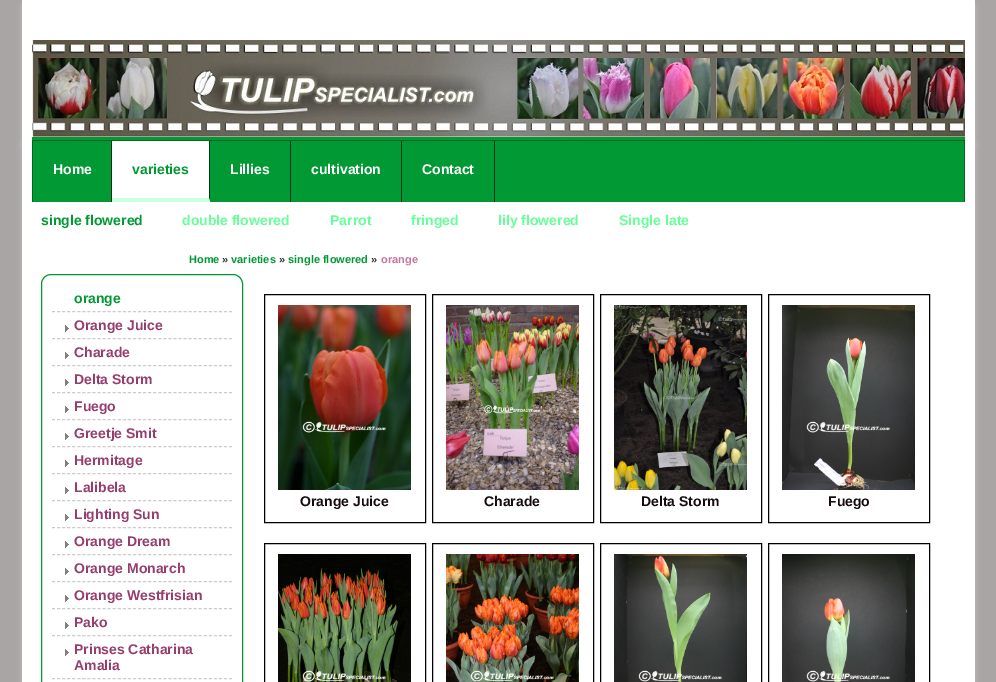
%!PS
<< /PageSize [996 682] /PageUsesTransparency true >> setpagedevice
/alpha { dup .setfillconstantalpha .setstrokeconstantalpha } def
/roundrect { 5 dict begin { /r /h /w /y /x } { exch def } forall
  x r add y moveto x w add y 2 copy h add r arct x w add y h add x 1 index r arct
  x y h add x y r arct x y 2 copy exch w add exch r arct closepath end } def
/shadow { 12 dict begin { /a /b /q /h /w /y /x } { exch def } forall gsave /was 0 def
  9 -2 -9 { dup b mul 4 div /e exch def 1 sub .425 mul 2.718 exch exp 1 add a .99 .min exch div /now exch def
    1 1 now sub 1 was sub div sub alpha /was now def
    w h .min e 2 mul add 0 gt { x e sub y e sub w e 2 mul add h e 2 mul add
      q e add b .6 mul add w h .min 2 div e add .min 0 .max roundrect fill } if } for grestore end } def
/picture { 5 dict begin { /h /w /y /x /name } { exch def } forall
  gsave x y translate w h scale
  w h 8 [w 0 0 h 0 0] name (r) file false 3 colorimage grestore end } def
0 .pushpdf14devicefilter
0 682 translate 1 -1 scale
4 setmiterlimit
0.667 0.647 0.647 setrgbcolor
0 0 996 682 rectfill
0.757 setgray
22 5 953 140 0 2.5 1 shadow
1 setgray
22 0 953 140 rectfill
0 0.6 0.2 setrgbcolor
32 137 933 3 rectfill
(img1.rgb) 32 40 933 97 picture
0.757 setgray
22 145 953 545 0 2.5 1 shadow
1 setgray
22 140 953 542 rectfill
0 0.6 0.2 setrgbcolor
33 141 931 61 rectfill
0 0.4 0.133 setrgbcolor
32 140 933 1 rectfill
964 140 1 62 rectfill
32 140 1 62 rectfill
0 0.2 0.067 setrgbcolor
111 141 1 61 rectfill
/LiberationSans-Bold [14 0 0 -14 0 0] selectfont
1 setgray
53 174 moveto (Home) show
112 141 98 61 rectfill
0 0.2 0.067 setrgbcolor
newpath 210 141 moveto 210 202 lineto 209 198 lineto 209 141 lineto closepath fill
0.8 1 0.867 setrgbcolor
newpath 210 202 moveto 112 202 lineto 112 198 lineto 209 198 lineto closepath fill
0 0.6 0.2 setrgbcolor
132 174 moveto (varieties) show
0 0.2 0.067 setrgbcolor
290 141 1 61 rectfill
1 setgray
230 174 moveto (Lillies) show
0 0.2 0.067 setrgbcolor
401 141 1 61 rectfill
1 setgray
311 174 moveto (cultivation) show
0 0.2 0.067 setrgbcolor
494 141 1 61 rectfill
1 setgray
422 174 moveto (Contact) show
0 0.6 0.2 setrgbcolor
41 225 moveto (single flowered) show
0.4 1 0.6 setrgbcolor
182 225 moveto (double flowered) show
330 225 moveto (Parrot) show
411 225 moveto (fringed) show
498 225 moveto (lily flowered) show
619 225 moveto (Single late) show
/LiberationSans-Bold [11 0 0 -11 0 0] selectfont
0 0.6 0.2 setrgbcolor
189 263 moveto (Home) show
0.196 setgray
222 263 moveto (») show
0 0.6 0.2 setrgbcolor
231 263 moveto (varieties) show
0.196 setgray
279 263 moveto (») show
0 0.6 0.2 setrgbcolor
288 263 moveto (single flowered) show
0.196 setgray
371 263 moveto (») show
0.773 0.451 0.627 setrgbcolor
381 263 moveto (orange) show
0 0.6 0.2 setrgbcolor
41.5 274.5 201 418 9.5 roundrect stroke
0.8 setgray
[3 2.06] 0 setdash
newpath 52 311.5 moveto 232 311.5 lineto stroke
/LiberationSans-Bold [14 0 0 -14 0 0] selectfont
0 0.6 0.2 setrgbcolor
74 303 moveto (orange) show
(img2.rgb) 65 325 4 7 picture
0.8 setgray
newpath 52 338.5 moveto 232 338.5 lineto stroke
0.584 0.239 0.427 setrgbcolor
74 330 moveto (Orange Juice) show
(img2.rgb) 65 352 4 7 picture
0.8 setgray
newpath 52 365.5 moveto 232 365.5 lineto stroke
0.584 0.239 0.427 setrgbcolor
74 357 moveto (Charade) show
(img2.rgb) 65 379 4 7 picture
0.8 setgray
newpath 52 392.5 moveto 232 392.5 lineto stroke
0.584 0.239 0.427 setrgbcolor
74 384 moveto (Delta Storm) show
(img2.rgb) 65 406 4 7 picture
0.8 setgray
newpath 52 419.5 moveto 232 419.5 lineto stroke
0.584 0.239 0.427 setrgbcolor
74 411 moveto (Fuego) show
(img2.rgb) 65 433 4 7 picture
0.8 setgray
newpath 52 446.5 moveto 232 446.5 lineto stroke
0.584 0.239 0.427 setrgbcolor
74 438 moveto (Greetje Smit) show
(img2.rgb) 65 460 4 7 picture
0.8 setgray
newpath 52 473.5 moveto 232 473.5 lineto stroke
0.584 0.239 0.427 setrgbcolor
74 465 moveto (Hermitage) show
(img2.rgb) 65 487 4 7 picture
0.8 setgray
newpath 52 500.5 moveto 232 500.5 lineto stroke
0.584 0.239 0.427 setrgbcolor
74 492 moveto (Lalibela) show
(img2.rgb) 65 514 4 7 picture
0.8 setgray
newpath 52 527.5 moveto 232 527.5 lineto stroke
0.584 0.239 0.427 setrgbcolor
74 519 moveto (Lighting Sun) show
(img2.rgb) 65 541 4 7 picture
0.8 setgray
newpath 52 554.5 moveto 232 554.5 lineto stroke
0.584 0.239 0.427 setrgbcolor
74 546 moveto (Orange Dream) show
(img2.rgb) 65 568 4 7 picture
0.8 setgray
newpath 52 581.5 moveto 232 581.5 lineto stroke
0.584 0.239 0.427 setrgbcolor
74 573 moveto (Orange Monarch) show
(img2.rgb) 65 595 4 7 picture
0.8 setgray
newpath 52 608.5 moveto 232 608.5 lineto stroke
0.584 0.239 0.427 setrgbcolor
74 600 moveto (Orange Westfrisian) show
(img2.rgb) 65 622 4 7 picture
0.8 setgray
newpath 52 635.5 moveto 232 635.5 lineto stroke
0.584 0.239 0.427 setrgbcolor
74 627 moveto (Pako) show
(img2.rgb) 65 649 4 7 picture
0.8 setgray
newpath 52 678.5 moveto 232 678.5 lineto stroke
0.584 0.239 0.427 setrgbcolor
74 654 moveto (Prinses Catharina) show
74 670 moveto (Amalia) show
0 setgray
[] 0 setdash
264.5 294.5 161 228 rectstroke
(img3.rgb) 278 305 133 185 picture
0.086 0.035 0.063 setrgbcolor
300 506 moveto (Orange Juice) show
0 setgray
432.5 294.5 161 228 rectstroke
(img4.rgb) 446 305 133 185 picture
0.086 0.035 0.063 setrgbcolor
484 506 moveto (Charade) show
0 setgray
600.5 294.5 161 228 rectstroke
(img5.rgb) 614 305 133 185 picture
0.086 0.035 0.063 setrgbcolor
641 506 moveto (Delta Storm) show
0 setgray
768.5 294.5 161 228 rectstroke
(img6.rgb) 782 305 133 185 picture
0.086 0.035 0.063 setrgbcolor
828 506 moveto (Fuego) show
0 setgray
264.5 543.5 161 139 rectstroke
(img7.rgb) 278 554 133 128 picture
432.5 543.5 161 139 rectstroke
(img8.rgb) 446 554 133 128 picture
600.5 543.5 161 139 rectstroke
(img9.rgb) 614 554 133 128 picture
768.5 543.5 161 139 rectstroke
(img10.rgb) 782 554 133 128 picture
.poppdf14devicefilter showpage
